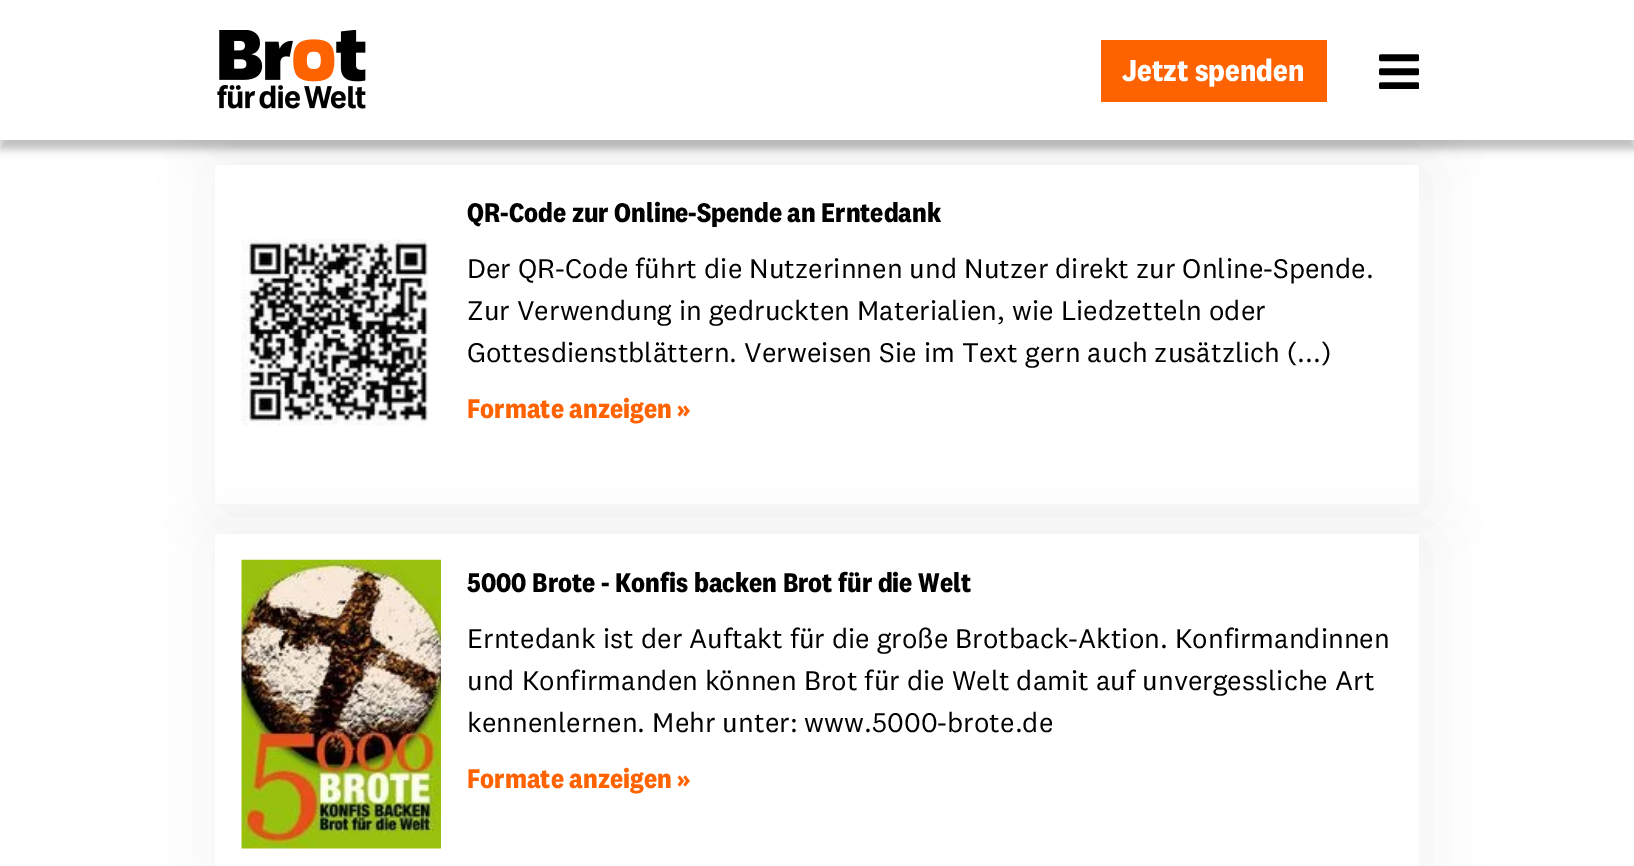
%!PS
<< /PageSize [1634 866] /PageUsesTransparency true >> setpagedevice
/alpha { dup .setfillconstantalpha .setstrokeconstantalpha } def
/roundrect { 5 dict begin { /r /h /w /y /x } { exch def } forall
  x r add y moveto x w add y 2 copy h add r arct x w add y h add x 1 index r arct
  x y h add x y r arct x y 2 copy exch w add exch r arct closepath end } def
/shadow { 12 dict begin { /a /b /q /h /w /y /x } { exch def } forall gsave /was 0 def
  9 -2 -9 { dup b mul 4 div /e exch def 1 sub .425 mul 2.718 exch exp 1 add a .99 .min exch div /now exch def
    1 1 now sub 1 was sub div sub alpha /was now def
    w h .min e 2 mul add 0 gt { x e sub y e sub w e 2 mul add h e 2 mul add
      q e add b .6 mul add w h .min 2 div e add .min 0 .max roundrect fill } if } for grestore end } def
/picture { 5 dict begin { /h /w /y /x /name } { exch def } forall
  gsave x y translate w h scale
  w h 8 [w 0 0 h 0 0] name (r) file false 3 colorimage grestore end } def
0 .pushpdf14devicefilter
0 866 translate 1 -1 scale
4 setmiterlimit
1 setgray
0 0 1634 866 rectfill
0 setgray
0 9 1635 140 0 4.5 0.25 shadow
221 -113 1204 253 0 37.5 0.05 shadow
221 170 1204 339 0 37.5 0.05 shadow
1 setgray
0 0 1634 140 rectfill
(img1.rgb) 217 30 149 79 picture
1 0.384 0 setrgbcolor
1101 40 226 62 rectfill
/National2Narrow-Bold [31.5 0 0 -31.5 0 0] selectfont
1 setgray
1122 81 moveto (Jetzt spenden) show
(img2.rgb) 1379 54 40 35 picture
215 165 1204 339 rectfill
0 setgray
221 539 1204 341 0 37.5 0.05 shadow
(img3.rgb) 241 239 188 187 picture
/National2Narrow-Bold [28 0 0 -28 0 0] selectfont
467 222 moveto (QR-Code zur Online-Spende an Erntedank) show
/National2-Regular [28 0 0 -28 0 0] selectfont
467 278 moveto (Der QR-Code führt die Nutzerinnen und Nutzer direkt zur Online-Spende.) show
467 320 moveto (Zur Verwendung in gedruckten Materialien, wie Liedzetteln oder) show
467 362 moveto (Gottesdienstblättern. Verweisen Sie im Text gern auch zusätzlich \(...\)) show
/National2Narrow-Bold [28 0 0 -28 0 0] selectfont
1 0.384 0 setrgbcolor
467 418 moveto (Formate anzeigen ») show
1 setgray
215 534 1204 332 rectfill
(img4.rgb) 241 559 200 290 picture
0 setgray
467 592 moveto (5000 Brote - Konfis backen Brot für die Welt) show
/National2-Regular [28 0 0 -28 0 0] selectfont
467 648 moveto (Erntedank ist der Auftakt für die große Brotback-Aktion. Konfirmandinnen) show
467 690 moveto (und Konfirmanden können Brot für die Welt damit auf unvergessliche Art) show
467 732 moveto (kennenlernen. Mehr unter: www.5000-brote.de) show
/National2Narrow-Bold [28 0 0 -28 0 0] selectfont
1 0.384 0 setrgbcolor
467 788 moveto (Formate anzeigen ») show
.poppdf14devicefilter showpage
